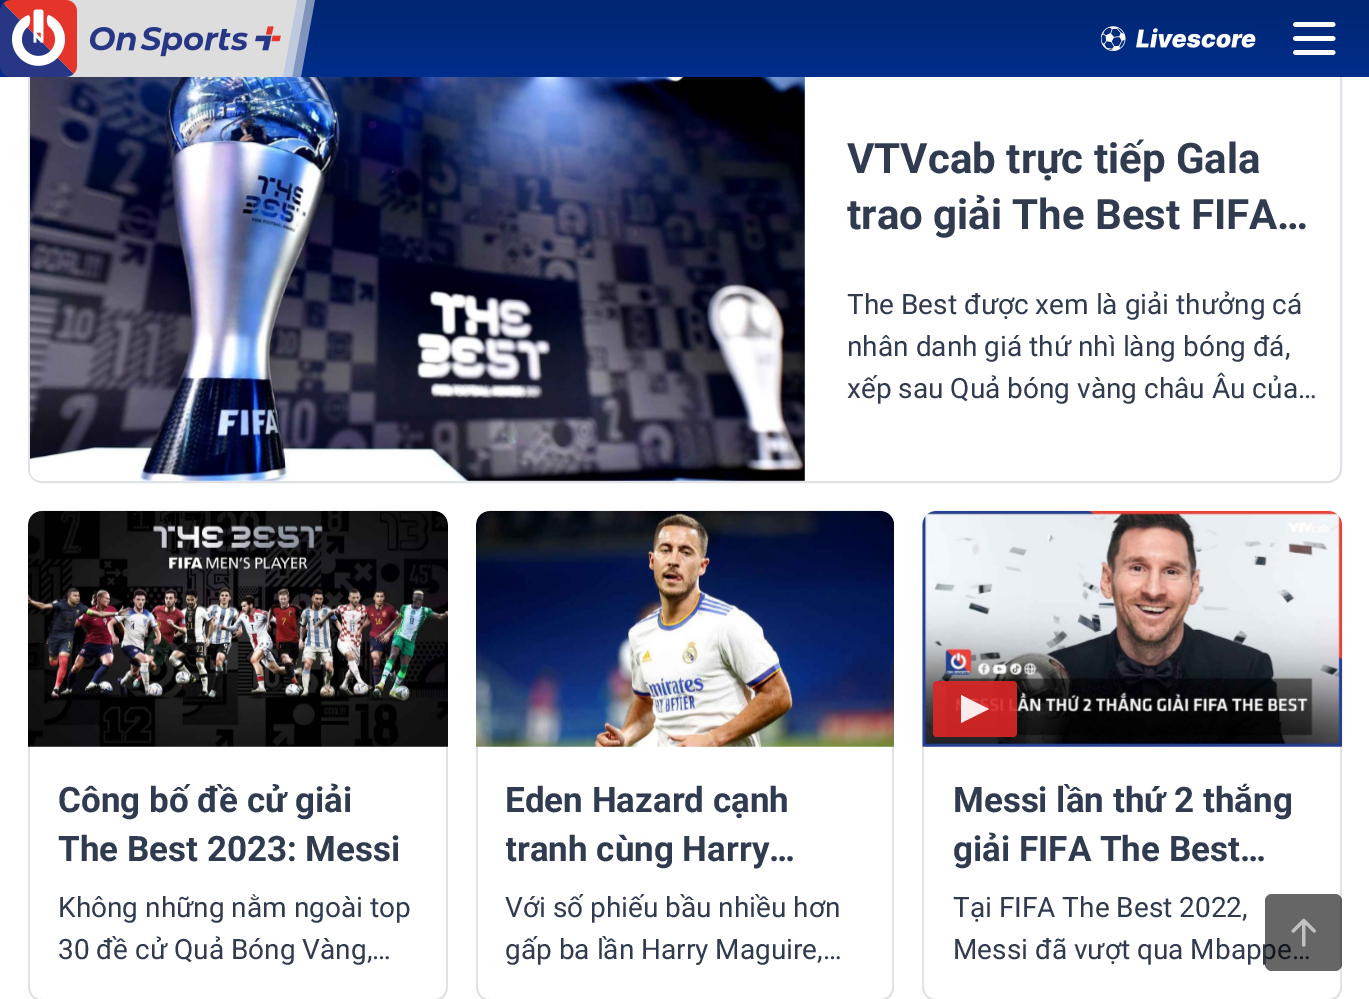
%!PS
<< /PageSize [1369 999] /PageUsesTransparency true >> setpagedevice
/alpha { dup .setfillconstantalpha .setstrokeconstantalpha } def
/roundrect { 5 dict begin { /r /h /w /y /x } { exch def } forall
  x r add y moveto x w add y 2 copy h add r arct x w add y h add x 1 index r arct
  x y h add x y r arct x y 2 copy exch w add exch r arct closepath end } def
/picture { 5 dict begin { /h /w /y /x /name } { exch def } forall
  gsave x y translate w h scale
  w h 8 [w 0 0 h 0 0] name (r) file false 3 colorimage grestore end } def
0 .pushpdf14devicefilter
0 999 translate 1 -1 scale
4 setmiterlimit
1 setgray
0 0 1369 999 rectfill
0.875 0.882 0.902 setrgbcolor
2 setlinewidth
29 45 1312 437 13 roundrect stroke
gsave newpath 0 0 moveto 1369 0 lineto 1369 77 lineto 0 77 lineto closepath clip newpath
<< /ShadingType 2 /ColorSpace /DeviceRGB /Coords [685 0 685 77] /Extend [true true] /Function << /FunctionType 3 /Domain [0 1] /Functions [<< /FunctionType 2 /Domain [0 1] /C0 [0 0.149 0.447] /C1 [0 0.18 0.541] /N 1 >> << /FunctionType 2 /Domain [0 1] /C0 [0 0.18 0.541] /C1 [0 0.18 0.541] /N 1 >>] /Bounds [0.99] /Encode [0 1 0 1] >> >> shfill grestore
(img1.rgb) 0 0 315 77 picture
(img2.rgb) 1101 26 155 25 picture
1 setgray
4.7 setlinewidth
1 setlinecap
1 setlinejoin
newpath 1295.5 24.5 moveto 1333 24.5 lineto 1295.5 38.5 moveto 1333 38.5 lineto 1295.5 52.5 moveto 1333 52.5 lineto stroke
(img3.rgb) 30 77 775 404 picture
/Roboto-Bold [42 0 0 -42 0 0] selectfont
0.188 0.231 0.314 setrgbcolor
847 173 moveto (VTVcab trực tiếp Gala) show
847 229 moveto (trao giải The Best FIFA…) show
/Roboto-Regular [28 0 0 -28 0 0] selectfont
847 314 moveto (The Best được xem là giải thưởng cá) show
847 356 moveto (nhân danh giá thứ nhì làng bóng đá,) show
847 398 moveto (xếp sau Quả bóng vàng châu Âu của…) show
(img4.rgb) 28 510 420 237 picture
0.875 0.882 0.902 setrgbcolor
newpath 28 747 moveto 448 747 lineto 448 987 lineto 448 995 442 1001 434 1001 curveto 42 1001 lineto 34 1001 28 995 28 987 curveto closepath 30 747 moveto 446 747 lineto 446 987 lineto 446 994 441 999 434 999 curveto 42 999 lineto 35 999 30 994 30 987 curveto closepath eofill
/Roboto-Bold [35 0 0 -35 0 0] selectfont
0.188 0.231 0.314 setrgbcolor
58 812 moveto (Công bố đề cử giải) show
58 861 moveto (The Best 2023: Messi) show
/Roboto-Regular [28 0 0 -28 0 0] selectfont
58 917 moveto (Không những nằm ngoài top) show
58 959 moveto (30 đề cử Quả Bóng Vàng,…) show
(img5.rgb) 476 510 418 237 picture
0.875 0.882 0.902 setrgbcolor
newpath 476 747 moveto 894 747 lineto 894 987 lineto 894 995 888 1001 880 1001 curveto 490 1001 lineto 482 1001 476 995 476 987 curveto closepath 478 747 moveto 892 747 lineto 892 987 lineto 892 994 887 999 880 999 curveto 490 999 lineto 483 999 478 994 478 987 curveto closepath eofill
/Roboto-Bold [35 0 0 -35 0 0] selectfont
0.188 0.231 0.314 setrgbcolor
505 812 moveto (Eden Hazard cạnh) show
gsave
506 775 359 98 rectclip
505 861 moveto (tranh cùng Harry…) show
grestore
/Roboto-Regular [28 0 0 -28 0 0] selectfont
505 917 moveto (Với số phiếu bầu nhiều hơn) show
505 959 moveto (gấp ba lần Harry Maguire,…) show
(img6.rgb) 922 510 421 237 picture
0.9 alpha
0.863 0.149 0.149 setrgbcolor
933 681 84 56 4 roundrect fill
1 setgray
newpath 961 723 moveto 961 695 lineto 989 709 lineto closepath fill
1 alpha
0.875 0.882 0.902 setrgbcolor
newpath 922 747 moveto 1342 747 lineto 1342 987 lineto 1342 995 1336 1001 1328 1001 curveto 936 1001 lineto 929 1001 922 995 922 987 curveto closepath 924 747 moveto 1340 747 lineto 1340 987 lineto 1340 994 1335 999 1328 999 curveto 936 999 lineto 929 999 924 994 924 987 curveto closepath eofill
/Roboto-Bold [35 0 0 -35 0 0] selectfont
0.188 0.231 0.314 setrgbcolor
953 812 moveto (Messi lần thứ 2 thắng) show
953 861 moveto (giải FIFA The Best…) show
/Roboto-Regular [28 0 0 -28 0 0] selectfont
953 917 moveto (Tại FIFA The Best 2022,) show
953 959 moveto (Messi đã vượt qua Mbappe…) show
0.6 alpha
0 setgray
1265 894 77 77 7 roundrect fill
1 alpha
(img7.rgb) 1291 918 25 29 picture
.poppdf14devicefilter showpage
